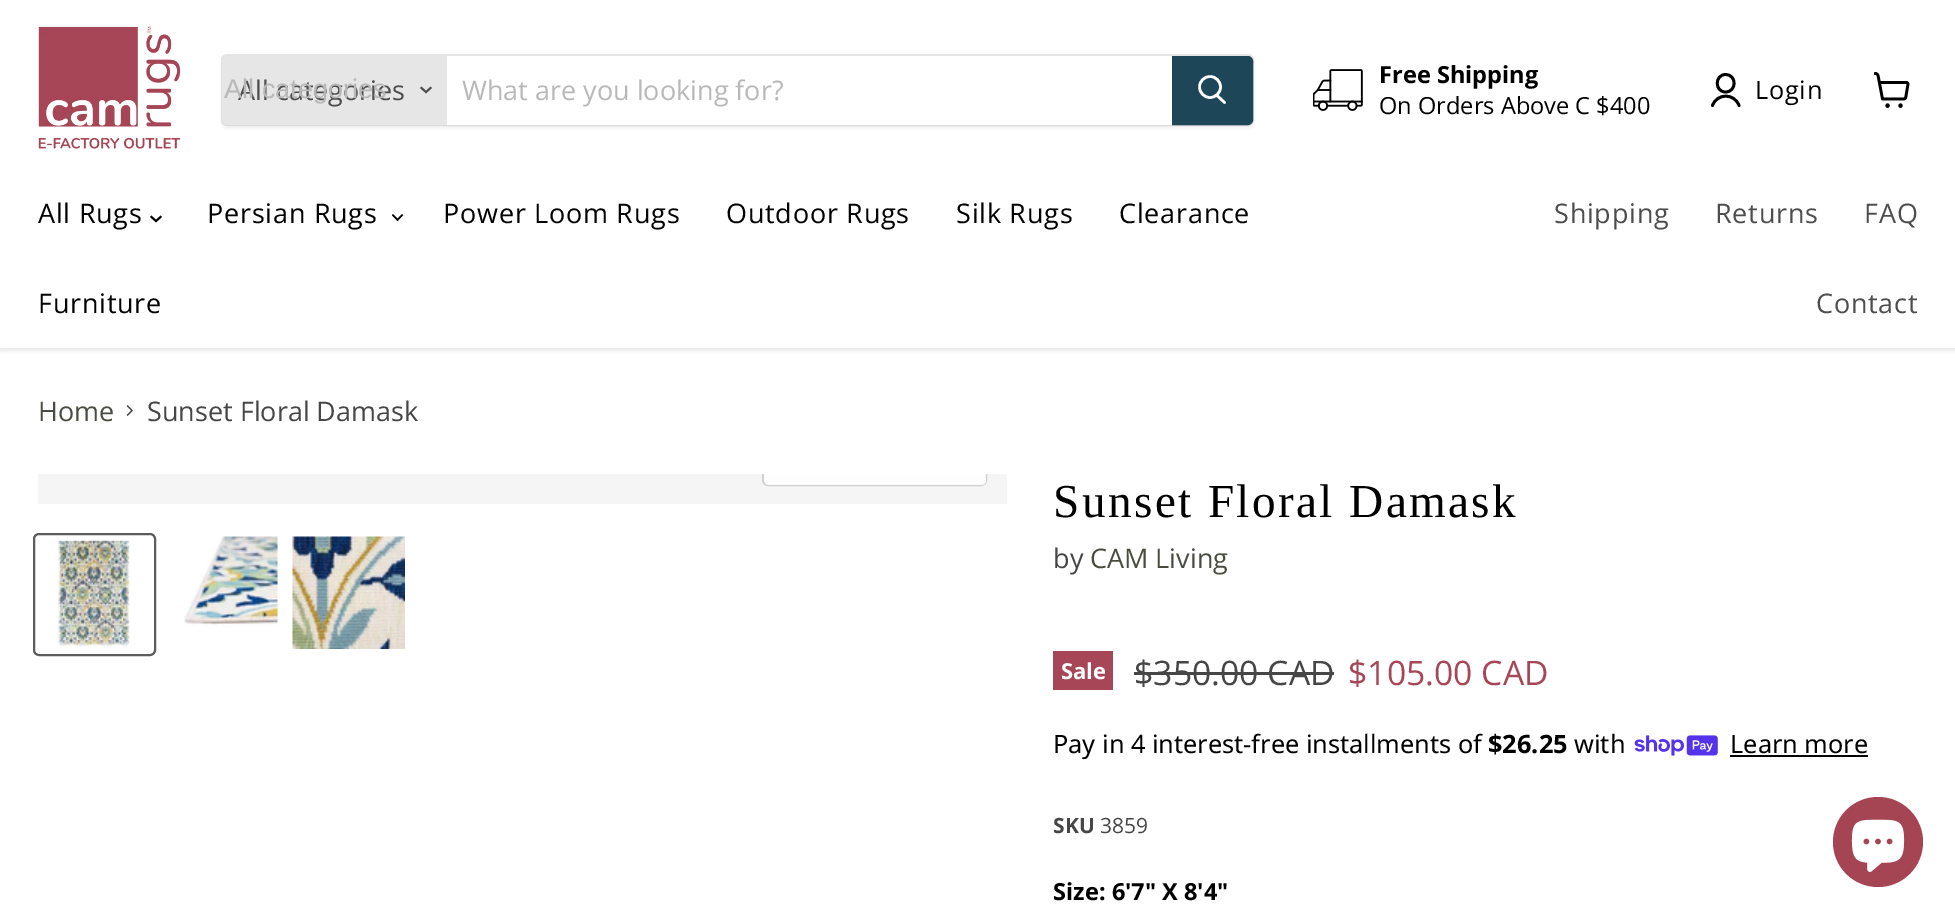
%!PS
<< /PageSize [1955 918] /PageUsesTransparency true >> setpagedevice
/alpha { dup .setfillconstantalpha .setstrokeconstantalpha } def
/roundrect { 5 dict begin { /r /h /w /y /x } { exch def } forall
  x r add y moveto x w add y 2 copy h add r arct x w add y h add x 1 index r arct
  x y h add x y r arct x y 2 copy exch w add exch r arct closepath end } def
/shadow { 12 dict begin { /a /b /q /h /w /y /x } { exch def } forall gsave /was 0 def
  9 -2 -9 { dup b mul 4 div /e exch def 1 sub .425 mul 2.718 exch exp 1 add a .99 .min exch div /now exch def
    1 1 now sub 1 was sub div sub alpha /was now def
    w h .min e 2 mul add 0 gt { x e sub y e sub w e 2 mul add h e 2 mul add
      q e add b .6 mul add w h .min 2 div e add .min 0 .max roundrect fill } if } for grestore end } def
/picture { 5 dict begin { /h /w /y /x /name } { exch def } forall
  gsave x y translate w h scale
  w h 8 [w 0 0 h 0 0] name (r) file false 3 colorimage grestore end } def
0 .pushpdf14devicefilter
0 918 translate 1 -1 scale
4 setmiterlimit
1 setgray
0 0 1955 918 rectfill
gsave
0 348 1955 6 rectclip
0.502 setgray
0 -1 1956 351 0 3 0.25 shadow
grestore
(img1.rgb) 38 26 143 123 picture
0.502 setgray
221 57 1033 72 6 2 0.11 shadow
0.2 alpha
2 setlinewidth
222 55 1031 70 5 roundrect stroke
1 alpha
0.902 setgray
newpath 227 56 moveto 447 56 lineto 447 125 lineto 227 125 lineto 224 125 222 123 222 120 curveto 222 61 lineto 222 58 224 56 227 56 curveto closepath fill
/OpenSans-Regular [27 0 0 -27 0 0] selectfont
0.302 setgray
238 100 moveto (All categories) show
/LiberationSans-Regular [27 0 0 -27 0 0] selectfont
0.722 setgray
224 98 moveto (All categories) show
0.302 setgray
1.9 setlinewidth
2 setlinecap
newpath 426 92 moveto 430.5 88 lineto 426 92 moveto 421.5 88 lineto stroke
1 setgray
447 56 725 69 rectfill
/OpenSans-Regular [27 0 0 -27 0 0] selectfont
0.722 setgray
462 100 moveto (What are you looking for?) show
0.114 0.275 0.349 setrgbcolor
newpath 1173 57 moveto 1248 57 lineto 1250 57 1252 59 1252 61 curveto 1252 120 lineto 1252 122 1250 124 1248 124 curveto 1173 124 lineto closepath gsave fill grestore
2 setlinewidth
0 setlinecap
stroke
1 setgray
2.6 setlinewidth
1 setlinecap
newpath 1224.5 102.5 moveto 1217 95.5 lineto stroke
0 setlinecap
newpath 1210 87 10.5 0 360 arc closepath stroke
(img2.rgb) 1313 69 50 42 picture
/OpenSans-Bold [23.6 0 0 -23.6 0 0] selectfont
0 setgray
1379 83 moveto (Free Shipping) show
/OpenSans-Regular [23.6 0 0 -23.6 0 0] selectfont
1379 114 moveto (On Orders Above C $400) show
2.8 setlinewidth
1 setlinecap
1 setlinejoin
newpath 1725.5 92 moveto 1737 92 1737 74.5 1725.5 74.5 curveto 1714.5 74.5 1714.5 92 1725.5 92 curveto closepath 1739 105.5 moveto 1734.5 93 1717 93 1712.5 105.5 curveto stroke
/OpenSans-Regular [25.3 0 0 -25.3 0 0] selectfont
1755 99 moveto 0.75 0 (Login) ashow
(img3.rgb) 1874 72 36 36 picture
/OpenSans-Regular [27 0 0 -27 0 0] selectfont
38 223 moveto 0.75 0 (All Rugs) ashow
1.9 setlinewidth
2 setlinecap
0 setlinejoin
newpath 156 221 moveto 160.5 217 lineto 156 221 moveto 151.5 217 lineto stroke
207 223 moveto 0.75 0 (Persian Rugs) ashow
(img4.rgb) 392 214 12 7 picture
443 223 moveto 0.75 0 (Power Loom Rugs) ashow
726 223 moveto 0.75 0 (Outdoor Rugs) ashow
956 223 moveto 0.75 0 (Silk Rugs) ashow
1119 223 moveto 0.75 0 (Clearance) ashow
38 313 moveto 0.75 0 (Furniture) ashow
0.302 setgray
1554 223 moveto 0.75 0 (Shipping) ashow
1715 223 moveto 0.75 0 (Returns) ashow
1864 223 moveto 0.75 0 (FAQ) ashow
1816 313 moveto 0.75 0 (Contact) ashow
0.286 0.302 0.255 setrgbcolor
38 421 moveto (Home) show
(img5.rgb) 126 405 7 11 picture
0.275 setgray
147 421 moveto (Sunset Floral Damask) show
0.961 setgray
38 474 969 30 rectfill
gsave
38 474 969 30 rectclip
0.816 setgray
2 setlinewidth
0 setlinecap
763 439 223 46 5 roundrect stroke
grestore
0.9 alpha
1 setgray
newpath 764 474 moveto 986 474 lineto 986 480 lineto 986 483 984 485 981 485 curveto 769 485 lineto 766 485 764 483 764 480 curveto closepath fill
1 alpha
0.361 setgray
2 setlinewidth
0 setlinecap
34 534 121 121 5 roundrect stroke
(img6.rgb) 58 539 72 108 picture
(img7.rgb) 184 536 94 91 picture
(img8.rgb) 292 536 113 113 picture
/LiberationSerif-Regular [47.25 0 0 -47.25 0 0] selectfont
0 setgray
1053 517 moveto 2.4 0 (Sunset Floral Damask) ashow
/OpenSans-Regular [27 0 0 -27 0 0] selectfont
0.275 setgray
1053 568 moveto (by) show
0.286 0.302 0.255 setrgbcolor
1090 568 moveto (CAM Living) show
0.651 0.275 0.337 setrgbcolor
1053 651 60 39 rectfill
/OpenSans-Bold [22 0 0 -22 0 0] selectfont
1 setgray
1061 679 moveto (Sale) show
/OpenSans-Regular [33.75 0 0 -33.75 0 0] selectfont
0.275 setgray
1134 685 moveto ($350.00 CAD) show
1134 672 200 3 rectfill
0.651 0.275 0.337 setrgbcolor
1348 685 moveto ($105.00 CAD) show
/NotoSans-Regular [25.3 0 0 -25.3 0 0] selectfont
0 setgray
1053 753 moveto (Pay in 4 interest-free installments of) show
/NotoSans-Bold [25.3 0 0 -25.3 0 0] selectfont
1488 753 moveto ($26.25) show
/NotoSans-Regular [25.3 0 0 -25.3 0 0] selectfont
1574 753 moveto (with) show
(img9.rgb) 1634 735 84 21 picture
1730 753 moveto (Learn more) show
1730 755 138 2 rectfill
/OpenSans-Bold [21 0 0 -21 0 0] selectfont
0.275 setgray
1053 833 moveto (SKU) show
/OpenSans-Regular [21 0 0 -21 0 0] selectfont
1100 833 moveto (3859) show
/OpenSans-Bold [23.6 0 0 -23.6 0 0] selectfont
0 setgray
1053 900 moveto (Size: 6'7" X 8'4") show
0.647 0.271 0.329 setrgbcolor
newpath 1878 842 45 0 360 arc closepath fill
(img10.rgb) 1851 819 54 53 picture
.poppdf14devicefilter showpage
